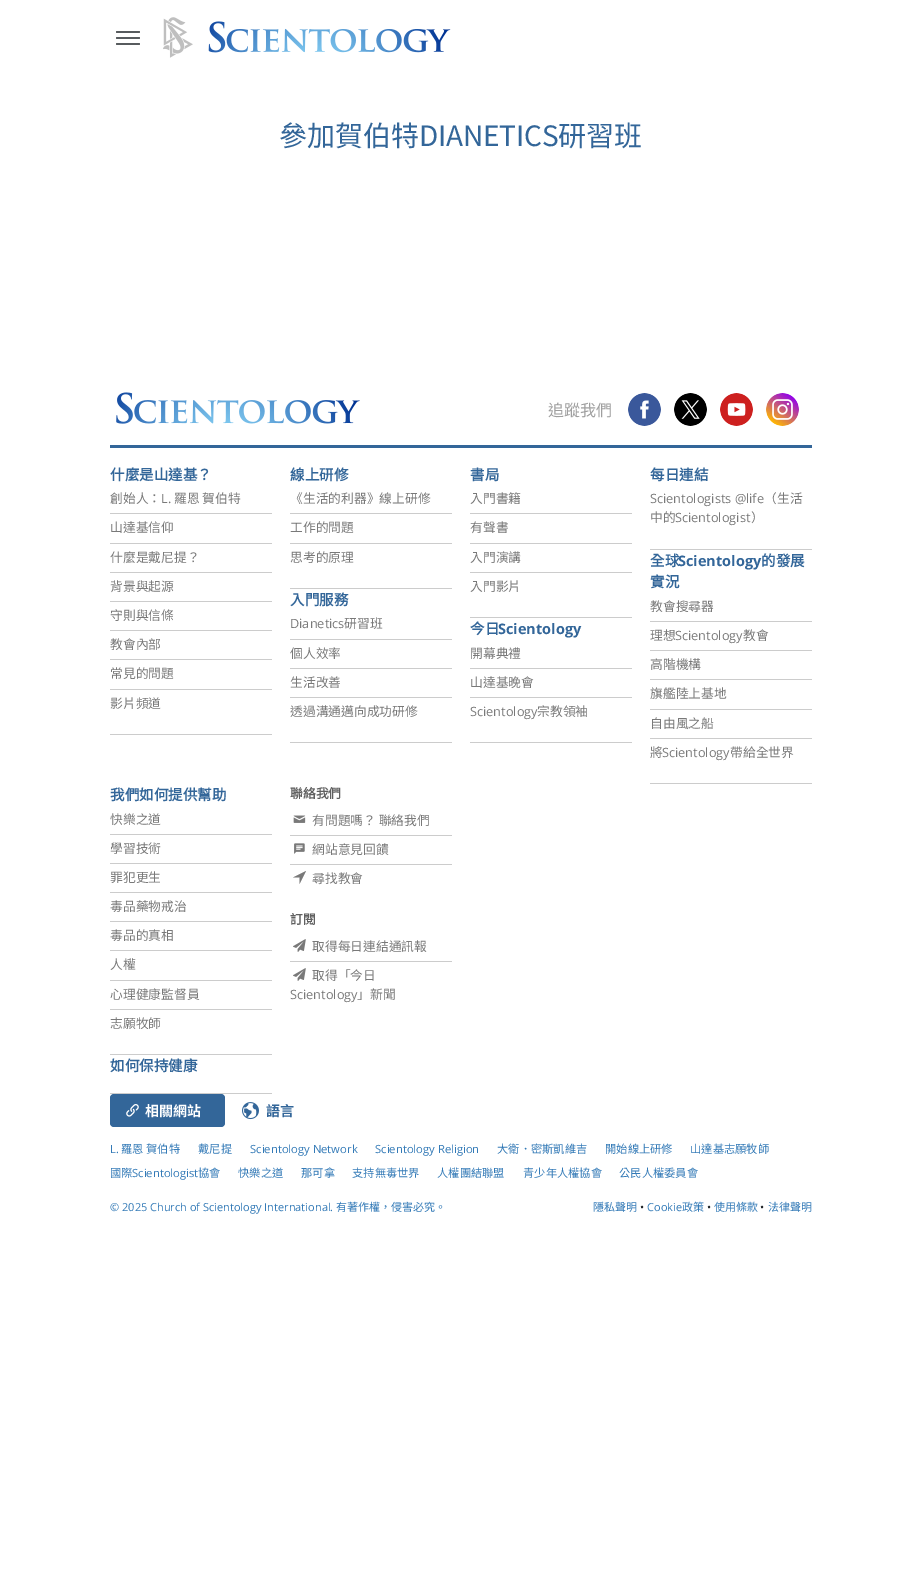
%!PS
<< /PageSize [921 1588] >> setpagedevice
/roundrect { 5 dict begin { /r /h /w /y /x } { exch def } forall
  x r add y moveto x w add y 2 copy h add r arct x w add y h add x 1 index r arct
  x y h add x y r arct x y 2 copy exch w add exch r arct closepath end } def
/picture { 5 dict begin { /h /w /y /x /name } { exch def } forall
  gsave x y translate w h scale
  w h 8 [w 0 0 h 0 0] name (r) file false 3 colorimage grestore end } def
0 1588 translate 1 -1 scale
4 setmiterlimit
1 setgray
0 0 921 1588 rectfill
0.341 0.357 0.369 setrgbcolor
116 31 24 2 1 roundrect fill
116 37 24 2 1 roundrect fill
116 43 24 2 1 roundrect fill
(img1.rgb) 163 17 30 41 picture
(img2.rgb) 208 21 243 32 picture
/NotoSansTC-Regular [28 0 0 -28 0 0] selectfont
0.2 0.4 0.6 setrgbcolor
279 146 moveto -0.1 0 (參加賀伯特DIANETICS研習班) ashow
110 445 702 3 rectfill
(img3.rgb) 116 392 244 32 picture
/NotoSansTC-Regular [16 0 0 -16 0 0] selectfont
0.624 setgray
548 416 moveto (追蹤我們) show
(img4.rgb) 628 393 33 33 picture
(img5.rgb) 674 393 33 33 picture
(img6.rgb) 720 393 33 33 picture
(img7.rgb) 766 393 33 33 picture
0.8 setgray
110 734 162 1 rectfill
/NotoSansCJKTC-Bold [14.5 0 0 -14.5 0 0] selectfont
0.2 0.4 0.6 setrgbcolor
110 480 moveto (什麼是山達基？) show
0.8 setgray
110 513 162 1 rectfill
/NotoSansCJKTC-Regular [12.75 0 0 -12.75 0 0] selectfont
0.475 setgray
110 503 moveto (創始人：) show
/OpenSans-Regular [12.75 0 0 -12.75 0 0] selectfont
161 503 moveto (L.) show
/NotoSansCJKTC-Regular [12.75 0 0 -12.75 0 0] selectfont
174 503 moveto (羅恩 賀伯特) show
0.8 setgray
110 543 162 1 rectfill
0.475 setgray
110 532 moveto (山達基信仰) show
0.8 setgray
110 572 162 1 rectfill
0.475 setgray
110 562 moveto (什麼是戴尼提？) show
0.8 setgray
110 601 162 1 rectfill
0.475 setgray
110 591 moveto (背景與起源) show
0.8 setgray
110 630 162 1 rectfill
0.475 setgray
110 620 moveto (守則與信條) show
0.8 setgray
110 659 162 1 rectfill
0.475 setgray
110 649 moveto (教會內部) show
0.8 setgray
110 689 162 1 rectfill
0.475 setgray
110 678 moveto (常見的問題) show
110 708 moveto (影片頻道) show
0.8 setgray
290 588 162 1 rectfill
/NotoSansCJKTC-Bold [14.5 0 0 -14.5 0 0] selectfont
0.2 0.4 0.6 setrgbcolor
290 480 moveto (線上研修) show
0.8 setgray
290 513 162 1 rectfill
/NotoSansCJKTC-Regular [12.75 0 0 -12.75 0 0] selectfont
0.475 setgray
290 503 moveto (《生活的利器》線上研修) show
0.8 setgray
290 543 162 1 rectfill
0.475 setgray
290 532 moveto (工作的問題) show
290 562 moveto (思考的原理) show
0.8 setgray
290 742 162 1 rectfill
/NotoSansCJKTC-Bold [14.5 0 0 -14.5 0 0] selectfont
0.2 0.4 0.6 setrgbcolor
290 605 moveto (入門服務) show
0.8 setgray
290 639 162 1 rectfill
/OpenSans-Regular [12.75 0 0 -12.75 0 0] selectfont
0.475 setgray
290 628 moveto (Dianetics) show
/NotoSansCJKTC-Regular [12.75 0 0 -12.75 0 0] selectfont
344 628 moveto (研習班) show
0.8 setgray
290 668 162 1 rectfill
0.475 setgray
290 658 moveto (個人效率) show
0.8 setgray
290 697 162 1 rectfill
0.475 setgray
290 687 moveto (生活改善) show
290 716 moveto (透過溝通邁向成功研修) show
0.8 setgray
470 617 162 1 rectfill
/NotoSansCJKTC-Bold [14.5 0 0 -14.5 0 0] selectfont
0.2 0.4 0.6 setrgbcolor
470 480 moveto (書局) show
0.8 setgray
470 513 162 1 rectfill
/NotoSansCJKTC-Regular [12.75 0 0 -12.75 0 0] selectfont
0.475 setgray
470 503 moveto (入門書籍) show
0.8 setgray
470 543 162 1 rectfill
0.475 setgray
470 532 moveto (有聲書) show
0.8 setgray
470 572 162 1 rectfill
0.475 setgray
470 562 moveto (入門演講) show
470 591 moveto (入門影片) show
0.8 setgray
470 742 162 1 rectfill
/NotoSansCJKTC-Bold [14.5 0 0 -14.5 0 0] selectfont
0.2 0.4 0.6 setrgbcolor
470 634 moveto (今日) show
/OpenSans-Bold [14.5 0 0 -14.5 0 0] selectfont
498 634 moveto (Scientology) show
0.8 setgray
470 668 162 1 rectfill
/NotoSansCJKTC-Regular [12.75 0 0 -12.75 0 0] selectfont
0.475 setgray
470 658 moveto (開幕典禮) show
0.8 setgray
470 697 162 1 rectfill
0.475 setgray
470 687 moveto (山達基晚會) show
/OpenSans-Regular [12.75 0 0 -12.75 0 0] selectfont
470 716 moveto (Scientology) show
/NotoSansCJKTC-Regular [12.75 0 0 -12.75 0 0] selectfont
537 716 moveto (宗教領袖) show
0.8 setgray
650 549 162 1 rectfill
/NotoSansCJKTC-Bold [14.5 0 0 -14.5 0 0] selectfont
0.2 0.4 0.6 setrgbcolor
650 480 moveto (每日連結) show
/OpenSans-Regular [12.75 0 0 -12.75 0 0] selectfont
0.475 setgray
650 503 moveto (Scientologists @life) show
/NotoSansCJKTC-Regular [12.75 0 0 -12.75 0 0] selectfont
764 503 moveto (（生活) show
650 522 moveto (中的) show
/OpenSans-Regular [12.75 0 0 -12.75 0 0] selectfont
675 522 moveto (Scientologist) show
/NotoSansCJKTC-Regular [12.75 0 0 -12.75 0 0] selectfont
751 522 moveto (）) show
0.8 setgray
650 783 162 1 rectfill
/NotoSansCJKTC-Bold [14.5 0 0 -14.5 0 0] selectfont
0.2 0.4 0.6 setrgbcolor
650 566 moveto (全球) show
/OpenSans-Bold [14.5 0 0 -14.5 0 0] selectfont
678 566 moveto (Scientology) show
/NotoSansCJKTC-Bold [14.5 0 0 -14.5 0 0] selectfont
761 566 moveto (的發展) show
650 587 moveto (實況) show
0.8 setgray
650 621 162 1 rectfill
/NotoSansCJKTC-Regular [12.75 0 0 -12.75 0 0] selectfont
0.475 setgray
650 611 moveto (教會搜尋器) show
0.8 setgray
650 650 162 1 rectfill
0.475 setgray
650 640 moveto (理想) show
/OpenSans-Regular [12.75 0 0 -12.75 0 0] selectfont
675 640 moveto (Scientology) show
/NotoSansCJKTC-Regular [12.75 0 0 -12.75 0 0] selectfont
743 640 moveto (教會) show
0.8 setgray
650 679 162 1 rectfill
0.475 setgray
650 669 moveto (高階機構) show
0.8 setgray
650 709 162 1 rectfill
0.475 setgray
650 698 moveto (旗艦陸上基地) show
0.8 setgray
650 738 162 1 rectfill
0.475 setgray
650 728 moveto (自由風之船) show
650 757 moveto (將) show
/OpenSans-Regular [12.75 0 0 -12.75 0 0] selectfont
662 757 moveto (Scientology) show
/NotoSansCJKTC-Regular [12.75 0 0 -12.75 0 0] selectfont
730 757 moveto (帶給全世界) show
0.8 setgray
110 1054 162 1 rectfill
/NotoSansCJKTC-Bold [14.5 0 0 -14.5 0 0] selectfont
0.2 0.4 0.6 setrgbcolor
110 800 moveto (我們如何提供幫助) show
0.8 setgray
110 834 162 1 rectfill
/NotoSansCJKTC-Regular [12.75 0 0 -12.75 0 0] selectfont
0.475 setgray
110 824 moveto (快樂之道) show
0.8 setgray
110 863 162 1 rectfill
0.475 setgray
110 853 moveto (學習技術) show
0.8 setgray
110 892 162 1 rectfill
0.475 setgray
110 882 moveto (罪犯更生) show
0.8 setgray
110 921 162 1 rectfill
0.475 setgray
110 911 moveto (毒品藥物戒治) show
0.8 setgray
110 950 162 1 rectfill
0.475 setgray
110 940 moveto (毒品的真相) show
0.8 setgray
110 980 162 1 rectfill
0.475 setgray
110 969 moveto (人權) show
0.8 setgray
110 1009 162 1 rectfill
0.475 setgray
110 999 moveto (心理健康監督員) show
110 1028 moveto (志願牧師) show
0.8 setgray
110 1093 162 1 rectfill
/NotoSansCJKTC-Bold [14.5 0 0 -14.5 0 0] selectfont
0.2 0.4 0.6 setrgbcolor
110 1071 moveto (如何保持健康) show
/NotoSansCJKTC-Bold [12.75 0 0 -12.75 0 0] selectfont
0.376 setgray
290 798 moveto (聯絡我們) show
0.8 setgray
290 835 162 1 rectfill
(img8.rgb) 293 815 13 8 picture
/NotoSansCJKTC-Regular [12.75 0 0 -12.75 0 0] selectfont
0.475 setgray
312 825 moveto (有問題嗎？ 聯絡我們) show
0.8 setgray
290 864 162 1 rectfill
(img9.rgb) 294 843 11 11 picture
0.475 setgray
312 854 moveto (網站意見回饋) show
newpath 299.5 884 moveto 299.5 877.5 lineto 293 877.5 lineto 306 871 lineto closepath fill
312 883 moveto (尋找教會) show
/NotoSansCJKTC-Bold [12.75 0 0 -12.75 0 0] selectfont
0.376 setgray
290 924 moveto (訂閱) show
0.8 setgray
290 961 162 1 rectfill
(img10.rgb) 293 939 13 13 picture
/NotoSansCJKTC-Regular [12.75 0 0 -12.75 0 0] selectfont
0.475 setgray
312 951 moveto (取得每日連結通訊報) show
(img10.rgb) 293 968 13 13 picture
312 980 moveto (取得「今日) show
/OpenSans-Regular [12.75 0 0 -12.75 0 0] selectfont
290 999 moveto (Scientology) show
/NotoSansCJKTC-Regular [12.75 0 0 -12.75 0 0] selectfont
357 999 moveto (」新聞) show
0.2 0.4 0.6 setrgbcolor
110 1094 115 33 4 roundrect fill
(img11.rgb) 126 1104 13 13 picture
/NotoSansTC-Bold [14 0 0 -14 0 0] selectfont
1 setgray
145 1116 moveto (相關網站) show
(img12.rgb) 242 1102 17 18 picture
0.2 0.4 0.6 setrgbcolor
266 1116 moveto (語言) show
/OpenSans-Regular [11.25 0 0 -11.25 0 0] selectfont
0.2 0.478 0.718 setrgbcolor
110 1153 moveto (L.) show
/NotoSansCJKTC-Regular [11.25 0 0 -11.25 0 0] selectfont
121 1153 moveto (羅恩 賀伯特) show
198 1153 moveto (戴尼提) show
/OpenSans-Regular [11.25 0 0 -11.25 0 0] selectfont
250 1153 moveto (Scientology Network) show
375 1153 moveto (Scientology Religion) show
/NotoSansCJKTC-Regular [11.25 0 0 -11.25 0 0] selectfont
497 1153 moveto (大衛．密斯凱維吉) show
605 1153 moveto (開始線上研修) show
690 1153 moveto (山達基志願牧師) show
110 1177 moveto (國際) show
/OpenSans-Regular [11.25 0 0 -11.25 0 0] selectfont
132 1177 moveto (Scientologist) show
/NotoSansCJKTC-Regular [11.25 0 0 -11.25 0 0] selectfont
198 1177 moveto (協會) show
238 1177 moveto (快樂之道) show
301 1177 moveto (那可拿) show
352 1177 moveto (支持無毒世界) show
437 1177 moveto (人權團結聯盟) show
523 1177 moveto (青少年人權協會) show
619 1177 moveto (公民人權委員會) show
/OpenSans-Regular [11 0 0 -11 0 0] selectfont
110 1211 moveto (© 2025 Church of Scientology International.) show
/NotoSansCJKTC-Regular [11 0 0 -11 0 0] selectfont
336 1211 moveto (有著作權，侵害必究。) show
593 1211 moveto (隱私聲明) show
/OpenSans-Regular [11 0 0 -11 0 0] selectfont
0.129 0.145 0.161 setrgbcolor
640 1211 moveto (•) show
0.2 0.478 0.718 setrgbcolor
647 1211 moveto (Cookie) show
/NotoSansCJKTC-Regular [11 0 0 -11 0 0] selectfont
682 1211 moveto (政策) show
/OpenSans-Regular [11 0 0 -11 0 0] selectfont
0.129 0.145 0.161 setrgbcolor
707 1211 moveto (•) show
/NotoSansCJKTC-Regular [11 0 0 -11 0 0] selectfont
0.2 0.478 0.718 setrgbcolor
714 1211 moveto (使用條款) show
/OpenSans-Regular [11 0 0 -11 0 0] selectfont
0.129 0.145 0.161 setrgbcolor
760 1211 moveto (•) show
/NotoSansCJKTC-Regular [11 0 0 -11 0 0] selectfont
0.2 0.478 0.718 setrgbcolor
768 1211 moveto (法律聲明) show
showpage
